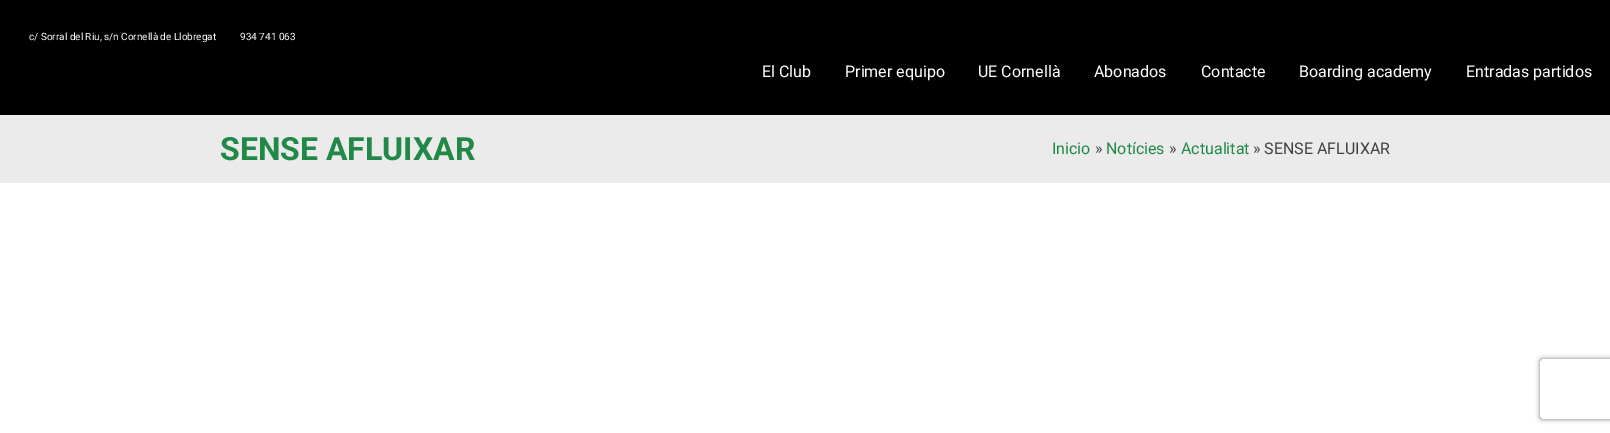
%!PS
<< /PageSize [1610 433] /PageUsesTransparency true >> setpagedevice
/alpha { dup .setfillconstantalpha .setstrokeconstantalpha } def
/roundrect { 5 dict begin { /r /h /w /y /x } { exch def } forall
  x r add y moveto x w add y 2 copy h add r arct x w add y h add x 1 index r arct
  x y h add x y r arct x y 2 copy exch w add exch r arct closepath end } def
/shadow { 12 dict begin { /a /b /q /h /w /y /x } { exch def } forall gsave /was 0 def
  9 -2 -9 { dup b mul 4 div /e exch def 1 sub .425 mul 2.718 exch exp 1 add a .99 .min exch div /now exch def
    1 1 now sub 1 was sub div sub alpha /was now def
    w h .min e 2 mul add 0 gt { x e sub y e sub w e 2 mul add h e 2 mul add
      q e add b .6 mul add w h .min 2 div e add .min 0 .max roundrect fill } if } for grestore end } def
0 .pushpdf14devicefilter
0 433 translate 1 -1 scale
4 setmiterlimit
1 setgray
0 0 1610 433 rectfill
0 setgray
0 0 1610 115 rectfill
/Roboto-Regular [10 0 0 -10 0 0] selectfont
1 setgray
29 40 moveto (c/ Sorral del Riu, s/n Cornellà de Llobregat) show
240 40 moveto (934 741 063) show
/Roboto-Regular [16 0 0 -16 0 0] selectfont
762 77 moveto (El Club) show
845 77 moveto (Primer equipo) show
978 77 moveto (UE Cornellà) show
1094 77 moveto (Abonados) show
1201 77 moveto (Contacte) show
1299 77 moveto (Boarding academy) show
1466 77 moveto (Entradas partidos) show
0.922 setgray
0 115 1610 68 rectfill
/Roboto-Bold [32 0 0 -32 0 0] selectfont
0.133 0.533 0.282 setrgbcolor
220 160 moveto (SENSE AFLUIXAR) show
/Roboto-Regular [16 0 0 -16 0 0] selectfont
1052 154 moveto (Inicio) show
0.251 setgray
1095 154 moveto (») show
0.133 0.533 0.282 setrgbcolor
1106 154 moveto (Notícies) show
0.251 setgray
1169 154 moveto (») show
0.133 0.533 0.282 setrgbcolor
1181 154 moveto (Actualitat) show
0.251 setgray
1253 154 moveto (» SENSE AFLUIXAR) show
gsave
newpath 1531 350 moveto 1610 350 lineto 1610 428 lineto 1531 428 lineto closepath 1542 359 moveto 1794 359 lineto 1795 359 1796 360 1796 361 curveto 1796 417 lineto 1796 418 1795 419 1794 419 curveto 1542 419 lineto 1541 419 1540 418 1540 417 curveto 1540 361 lineto 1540 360 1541 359 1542 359 curveto closepath eoclip newpath
0.502 setgray
1540 359 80 60 2 2.5 1 shadow
grestore
.poppdf14devicefilter showpage
